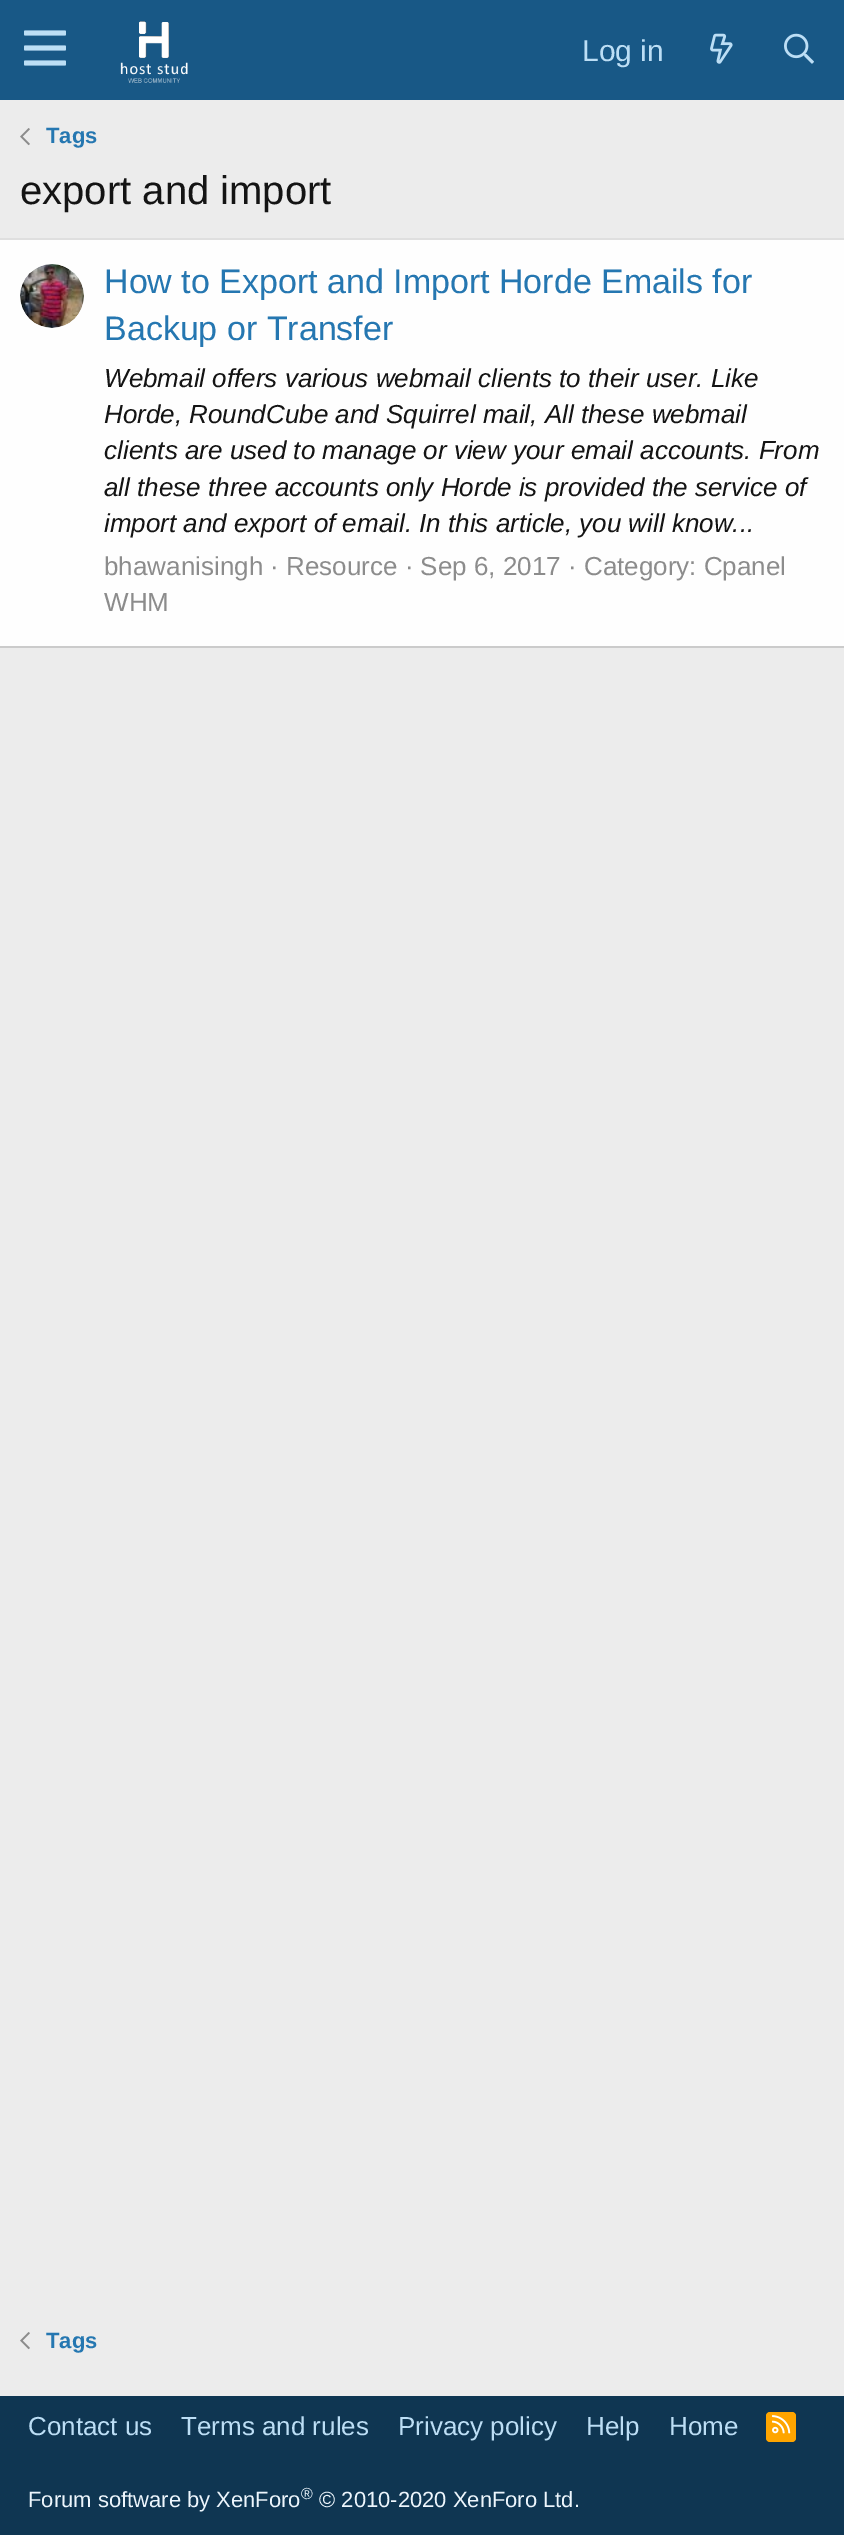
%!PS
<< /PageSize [844 2535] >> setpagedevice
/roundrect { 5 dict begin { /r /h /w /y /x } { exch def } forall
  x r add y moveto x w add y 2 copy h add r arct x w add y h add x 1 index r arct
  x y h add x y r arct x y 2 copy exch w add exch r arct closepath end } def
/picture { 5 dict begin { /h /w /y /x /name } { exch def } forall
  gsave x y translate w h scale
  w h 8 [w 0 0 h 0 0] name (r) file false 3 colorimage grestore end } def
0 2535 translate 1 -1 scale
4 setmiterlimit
0.925 setgray
0 0 844 2535 rectfill
0.094 0.345 0.525 setrgbcolor
0 0 844 100 rectfill
(img1.rgb) 24 30 42 36 picture
(img2.rgb) 120 21 68 62 picture
/LiberationSans-Regular [30 0 0 -30 0 0] selectfont
0.737 0.871 0.961 setrgbcolor
582 61 moveto (Log in) show
(img3.rgb) 710 33 23 31 picture
(img4.rgb) 784 33 30 31 picture
(img5.rgb) 20 128 10 18 picture
/LiberationSans-Bold [22 0 0 -22 0 0] selectfont
0.145 0.467 0.694 setrgbcolor
46 143 moveto (Tags) show
/LiberationSans-Regular [40 0 0 -40 0 0] selectfont
0.078 setgray
20 204 moveto (export and import) show
0.996 setgray
0 240 844 406 rectfill
0.875 setgray
0 238 844 2 rectfill
0.796 setgray
0 646 844 2 rectfill
(img6.rgb) 20 264 64 64 picture
/LiberationSans-Regular [34 0 0 -34 0 0] selectfont
0.145 0.467 0.694 setrgbcolor
104 293 moveto (How to Export and Import Horde Emails for) show
104 340 moveto (Backup or Transfer) show
/LiberationSans-Italic [26 0 0 -26 0 0] selectfont
0.078 setgray
104 387 moveto (Webmail offers various webmail clients to their user. Like) show
104 423 moveto (Horde, RoundCube and Squirrel mail, All these webmail) show
104 459 moveto (clients are used to manage or view your email accounts. From) show
104 496 moveto (all these three accounts only Horde is provided the service of) show
104 532 moveto (import and export of email. In this article, you will know...) show
/LiberationSans-Regular [26 0 0 -26 0 0] selectfont
0.549 setgray
104 575 moveto (bhawanisingh · Resource · Sep 6, 2017 · Category: Cpanel) show
104 611 moveto (WHM) show
(img5.rgb) 20 2332 10 18 picture
/LiberationSans-Bold [22 0 0 -22 0 0] selectfont
0.145 0.467 0.694 setrgbcolor
46 2348 moveto (Tags) show
0.059 0.212 0.322 setrgbcolor
0 2396 844 139 rectfill
/LiberationSans-Regular [26 0 0 -26 0 0] selectfont
0.737 0.871 0.961 setrgbcolor
28 2435 moveto (Contact us) show
181 2435 moveto (Terms and rules) show
398 2435 moveto (Privacy policy) show
586 2435 moveto (Help) show
669 2435 moveto (Home) show
1 0.647 0 setrgbcolor
766 2412 30 30 4 roundrect fill
(img7.rgb) 772 2415 19 19 picture
/LiberationSans-Regular [22 0 0 -22 0 0] selectfont
0.929 0.965 0.992 setrgbcolor
28 2507 moveto (Forum software by XenForo) show
/LiberationSans-Regular [16 0 0 -16 0 0] selectfont
301 2499 moveto (®) show
/LiberationSans-Regular [22 0 0 -22 0 0] selectfont
319 2507 moveto (© 2010-2020 XenForo Ltd.) show
showpage
